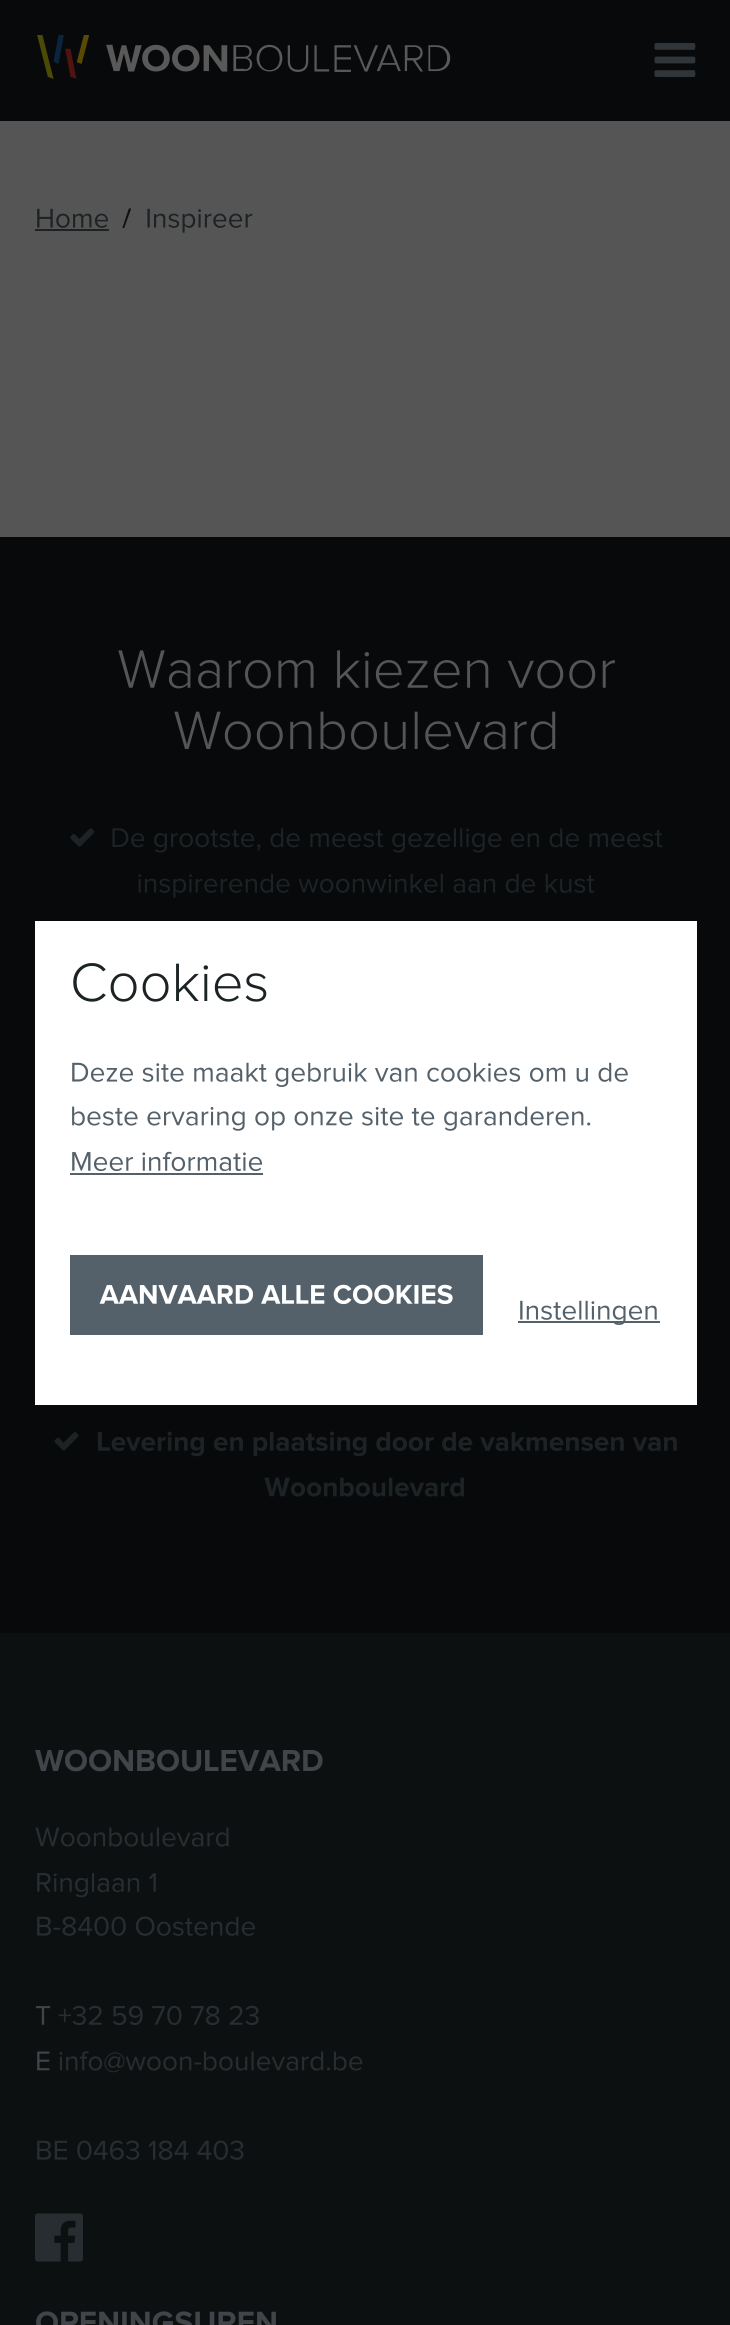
%!PS
<< /PageSize [730 2325] >> setpagedevice
/picture { 5 dict begin { /h /w /y /x /name } { exch def } forall
  gsave x y translate w h scale
  w h 8 [w 0 0 h 0 0] name (r) file false 3 colorimage grestore end } def
0 2325 translate 1 -1 scale
4 setmiterlimit
0.333 setgray
0 0 730 2325 rectfill
0.027 0.035 0.039 setrgbcolor
0 0 730 121 rectfill
(img1.rgb) 37 35 414 44 picture
(img2.rgb) 654 43 42 34 picture
(img3.rgb) 37 208 71 20 picture
0.114 0.133 0.145 setrgbcolor
35 229 74 2 rectfill
0.051 0.063 0.067 setrgbcolor
newpath 124 228 moveto 122.5 228 lineto 129 208.5 lineto 131 208.5 lineto closepath fill
(img4.rgb) 147 208 106 25 picture
0.027 0.035 0.039 setrgbcolor
0 537 730 1096 rectfill
(img5.rgb) 118 650 497 39 picture
(img6.rgb) 174 711 382 39 picture
(img7.rgb) 70 828 25 19 picture
(img8.rgb) 112 828 551 25 picture
(img9.rgb) 138 873 457 25 picture
(img10.rgb) 54 1432 25 19 picture
(img11.rgb) 97 1431 580 26 picture
(img12.rgb) 264 1477 200 20 picture
0.051 0.063 0.067 setrgbcolor
0 1633 730 692 rectfill
(img13.rgb) 35 1749 288 23 picture
(img14.rgb) 35 1827 194 20 picture
(img15.rgb) 37 1873 119 25 picture
(img16.rgb) 37 1916 218 20 picture
(img17.rgb) 35 2006 16 19 picture
(img18.rgb) 58 2005 201 21 picture
(img19.rgb) 37 2051 13 20 picture
(img20.rgb) 59 2051 304 22 picture
(img21.rgb) 37 2140 207 20 picture
(img22.rgb) 35 2213 48 49 picture
(img23.rgb) 36 2311 240 14 picture
1 setgray
35 921 662 484 rectfill
(img24.rgb) 73 963 194 39 picture
(img25.rgb) 72 1062 556 25 picture
(img26.rgb) 72 1106 519 25 picture
(img27.rgb) 72 1151 191 21 picture
0.329 0.38 0.416 setrgbcolor
70 1173 193 2 rectfill
70 1255 413 80 rectfill
(img28.rgb) 99 1284 354 21 picture
518 1321 142 2 rectfill
(img29.rgb) 520 1300 137 25 picture
showpage
